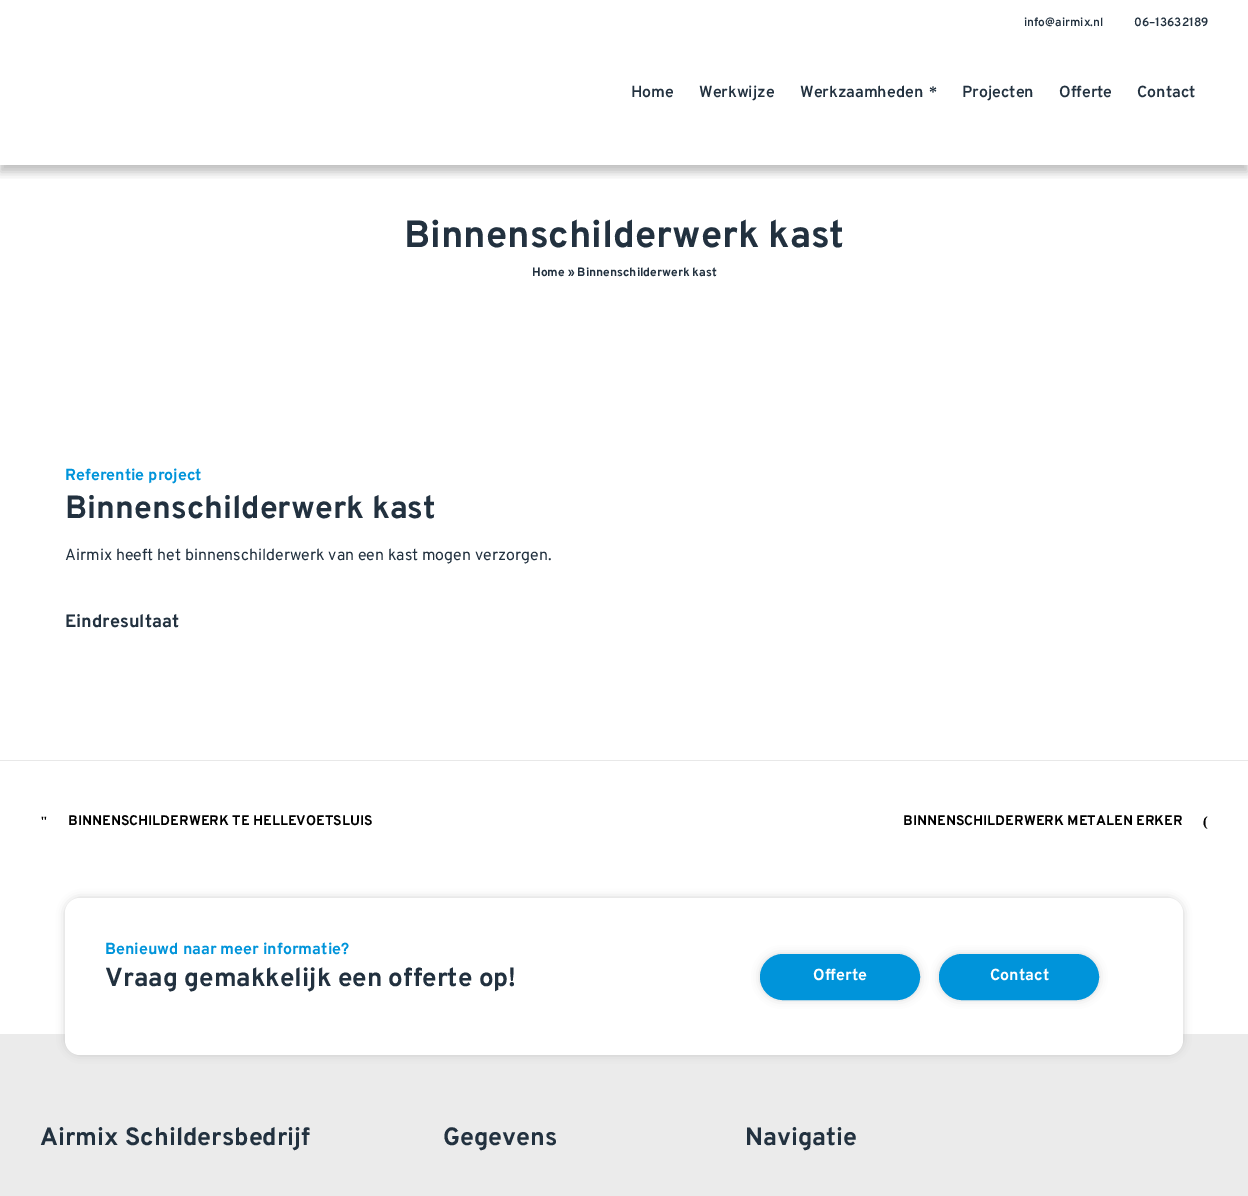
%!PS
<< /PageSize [1248 1196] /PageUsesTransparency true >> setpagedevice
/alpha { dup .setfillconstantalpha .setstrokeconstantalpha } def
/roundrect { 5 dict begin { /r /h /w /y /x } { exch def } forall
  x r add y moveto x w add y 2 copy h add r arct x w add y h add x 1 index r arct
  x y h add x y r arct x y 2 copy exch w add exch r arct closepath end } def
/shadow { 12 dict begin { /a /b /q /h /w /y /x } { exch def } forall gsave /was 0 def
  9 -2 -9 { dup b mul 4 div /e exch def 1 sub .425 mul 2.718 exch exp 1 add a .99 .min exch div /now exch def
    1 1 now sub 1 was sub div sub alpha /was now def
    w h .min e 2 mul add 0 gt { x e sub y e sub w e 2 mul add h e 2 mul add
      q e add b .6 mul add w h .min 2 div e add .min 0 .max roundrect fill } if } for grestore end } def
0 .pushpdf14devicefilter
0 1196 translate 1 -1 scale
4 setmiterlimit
1 setgray
0 0 1248 1196 rectfill
gsave
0 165 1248 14 rectclip
0 setgray
0 19 1248 153 0 5 0.25 shadow
grestore
1 10 1246 2 rectfill
/Overpass-SemiBold [12 0 0 -12 0 0] selectfont
0.133 0.192 0.247 setrgbcolor
1024 26 moveto (info@airmix.nl) show
1134 26 moveto (06–13632189) show
/Overpass-SemiBold [16 0 0 -16 0 0] selectfont
631 97 moveto (Home) show
699 97 moveto (Werkwijze) show
800 97 moveto (Werkzaamheden) show
/LiberationSerif-Bold [16 0 0 -16 0 0] selectfont
929 97 moveto (*) show
/Overpass-SemiBold [16 0 0 -16 0 0] selectfont
962 97 moveto (Projecten) show
1059 97 moveto (Offerte) show
1137 97 moveto (Contact) show
/Overpass-Bold [38 0 0 -38 0 0] selectfont
404 247 moveto (Binnenschilderwerk kast) show
/Overpass-Bold [12 0 0 -12 0 0] selectfont
532 276 moveto (Home » Binnenschilderwerk kast) show
/Overpass-Bold [16 0 0 -16 0 0] selectfont
0 0.58 0.855 setrgbcolor
65 480 moveto (Referentie project) show
/Overpass-Bold [32 0 0 -32 0 0] selectfont
0.133 0.192 0.247 setrgbcolor
65 518 moveto (Binnenschilderwerk kast) show
/Overpass-Regular [16 0 0 -16 0 0] selectfont
65 560 moveto (Airmix heeft het binnenschilderwerk van een kast mogen verzorgen.) show
/Overpass-Bold [18 0 0 -18 0 0] selectfont
65 627 moveto (Eindresultaat) show
0.922 setgray
0 1034 1248 162 rectfill
0.702 setgray
67 900 1114 153 13 5 1 shadow
1 setgray
65 898 1118 157 15 roundrect fill
/Overpass-Bold [16 0 0 -16 0 0] selectfont
0 0.58 0.855 setrgbcolor
105 954 moveto (Benieuwd naar meer informatie?) show
/Overpass-Bold [26 0 0 -26 0 0] selectfont
0.133 0.192 0.247 setrgbcolor
105 986 moveto (Vraag gemakkelijk een offerte op!) show
0.765 setgray
762 956 156 42 21 5 1 shadow
0 0.58 0.855 setrgbcolor
761 955 158 44 22 roundrect gsave fill grestore
2 setlinewidth
stroke
/Overpass-Bold [16 0 0 -16 0 0] selectfont
1 setgray
813 980 moveto (Offerte) show
0.765 setgray
941 956 156 42 21 5 1 shadow
0 0.58 0.855 setrgbcolor
940 955 158 44 22 roundrect gsave fill grestore
stroke
1 setgray
990 980 moveto (Contact) show
0.91 setgray
0 760 1248 1 rectfill
/LiberationSerif-Bold [14 0 0 -14 0 0] selectfont
0 setgray
40 826 moveto (") show
/Overpass-Bold [14 0 0 -14 0 0] selectfont
68 825 moveto (BINNENSCHILDERWERK TE HELLEVOETSLUIS) show
903 825 moveto (BINNENSCHILDERWERK METALEN ERKER) show
/LiberationSerif-Bold [14 0 0 -14 0 0] selectfont
1203 826 moveto (\() show
/Overpass-Bold [25 0 0 -25 0 0] selectfont
0.133 0.192 0.247 setrgbcolor
40 1145 moveto (Airmix Schildersbedrijf) show
443 1145 moveto (Gegevens) show
745 1145 moveto (Navigatie) show
.poppdf14devicefilter showpage
